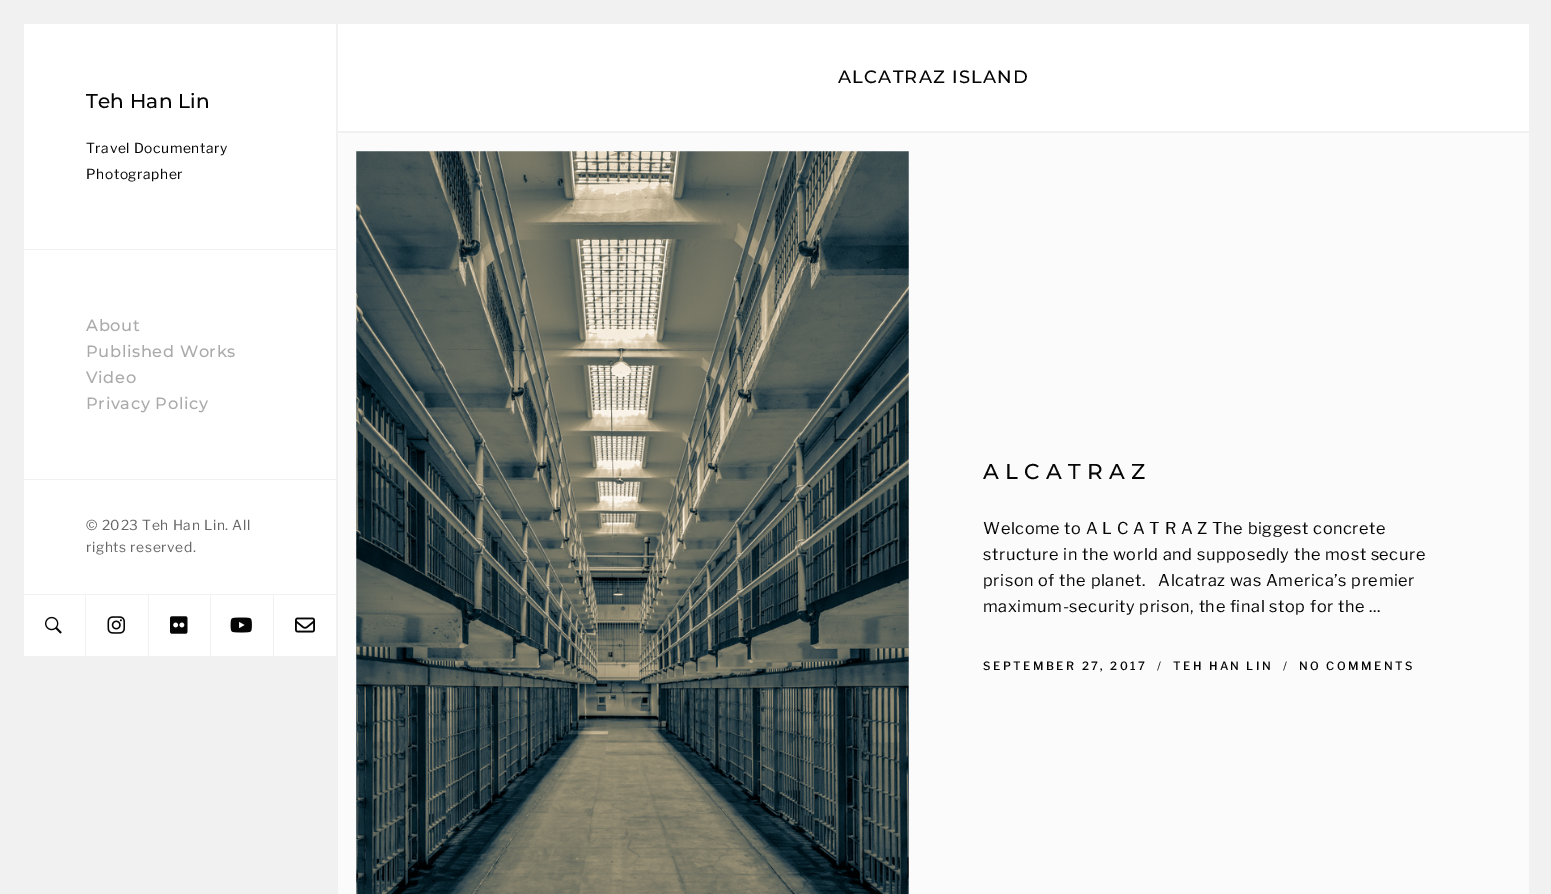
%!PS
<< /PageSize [1551 894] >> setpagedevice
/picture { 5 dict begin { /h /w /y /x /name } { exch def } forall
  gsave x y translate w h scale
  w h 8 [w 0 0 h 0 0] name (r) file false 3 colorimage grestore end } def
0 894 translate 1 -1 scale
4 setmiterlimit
0.945 setgray
0 0 1551 894 rectfill
1 setgray
24 24 312 225 rectfill
/Montserrat-Medium [20 0 0 -20 0 0] selectfont
0.02 setgray
86 108 moveto 0.25 0 (Teh Han Lin) ashow
/LibreFranklin-Regular [13.75 0 0 -13.75 0 0] selectfont
86 153 moveto 0.62 0 (Travel Documentary) ashow
86 179 moveto 0.62 0 (Photographer) ashow
1 setgray
24 250 312 229 rectfill
/Montserrat-Medium [16.25 0 0 -16.25 0 0] selectfont
0.667 setgray
86 331 moveto 0.62 0 (About) ashow
86 357 moveto 0.62 0 (Published Works) ashow
86 383 moveto 0.62 0 (Video) ashow
86 409 moveto 0.62 0 (Privacy Policy) ashow
1 setgray
24 480 312 114 rectfill
/LibreFranklin-Regular [13.75 0 0 -13.75 0 0] selectfont
0.4 setgray
86 530 moveto 0.62 0 (© 2023 Teh Han Lin. All) ashow
86 552 moveto 0.62 0 (rights reserved.) ashow
1 setgray
24 595 61 61 rectfill
(img1.rgb) 45 616 17 18 picture
86 595 62 61 rectfill
(img2.rgb) 107 616 18 18 picture
149 595 61 61 rectfill
(img3.rgb) 170 616 18 18 picture
211 595 62 61 rectfill
(img4.rgb) 230 617 22 16 picture
274 595 62 61 rectfill
(img5.rgb) 295 617 20 16 picture
338 24 1191 107 rectfill
/Montserrat-Medium [17.9 0 0 -17.9 0 0] selectfont
0.02 setgray
838 83 moveto 1.25 0 (ALCATRAZ ISLAND) ashow
0.984 setgray
338 133 1191 761 rectfill
(img6.rgb) 356 151 553 743 picture
/Montserrat-Medium [21.5 0 0 -21.5 0 0] selectfont
0.02 setgray
983 479 moveto 0.25 0 (A L C A T R A Z) ashow
/LibreFranklin-Regular [16.25 0 0 -16.25 0 0] selectfont
983 534 moveto 0.62 0 (Welcome to A L C A T R A Z The biggest concrete) ashow
983 560 moveto 0.62 0 (structure in the world and supposedly the most secure) ashow
983 586 moveto 0.62 0 (prison of the planet.   Alcatraz was America’s premier) ashow
983 612 moveto 0.62 0 (maximum-security prison, the final stop for the ...) ashow
/LibreFranklin-Medium [11.4 0 0 -11.4 0 0] selectfont
983 670 moveto 2.5 0 (SEPTEMBER 27, 2017) ashow
/LibreFranklin-Regular [11.4 0 0 -11.4 0 0] selectfont
1157 670 moveto 2.5 0 (/) ashow
/LibreFranklin-Medium [11.4 0 0 -11.4 0 0] selectfont
1173 670 moveto 2.5 0 (TEH HAN LIN) ashow
/LibreFranklin-Regular [11.4 0 0 -11.4 0 0] selectfont
1283 670 moveto 2.5 0 (/) ashow
/LibreFranklin-Medium [11.4 0 0 -11.4 0 0] selectfont
1299 670 moveto 2.5 0 (NO COMMENTS) ashow
showpage
